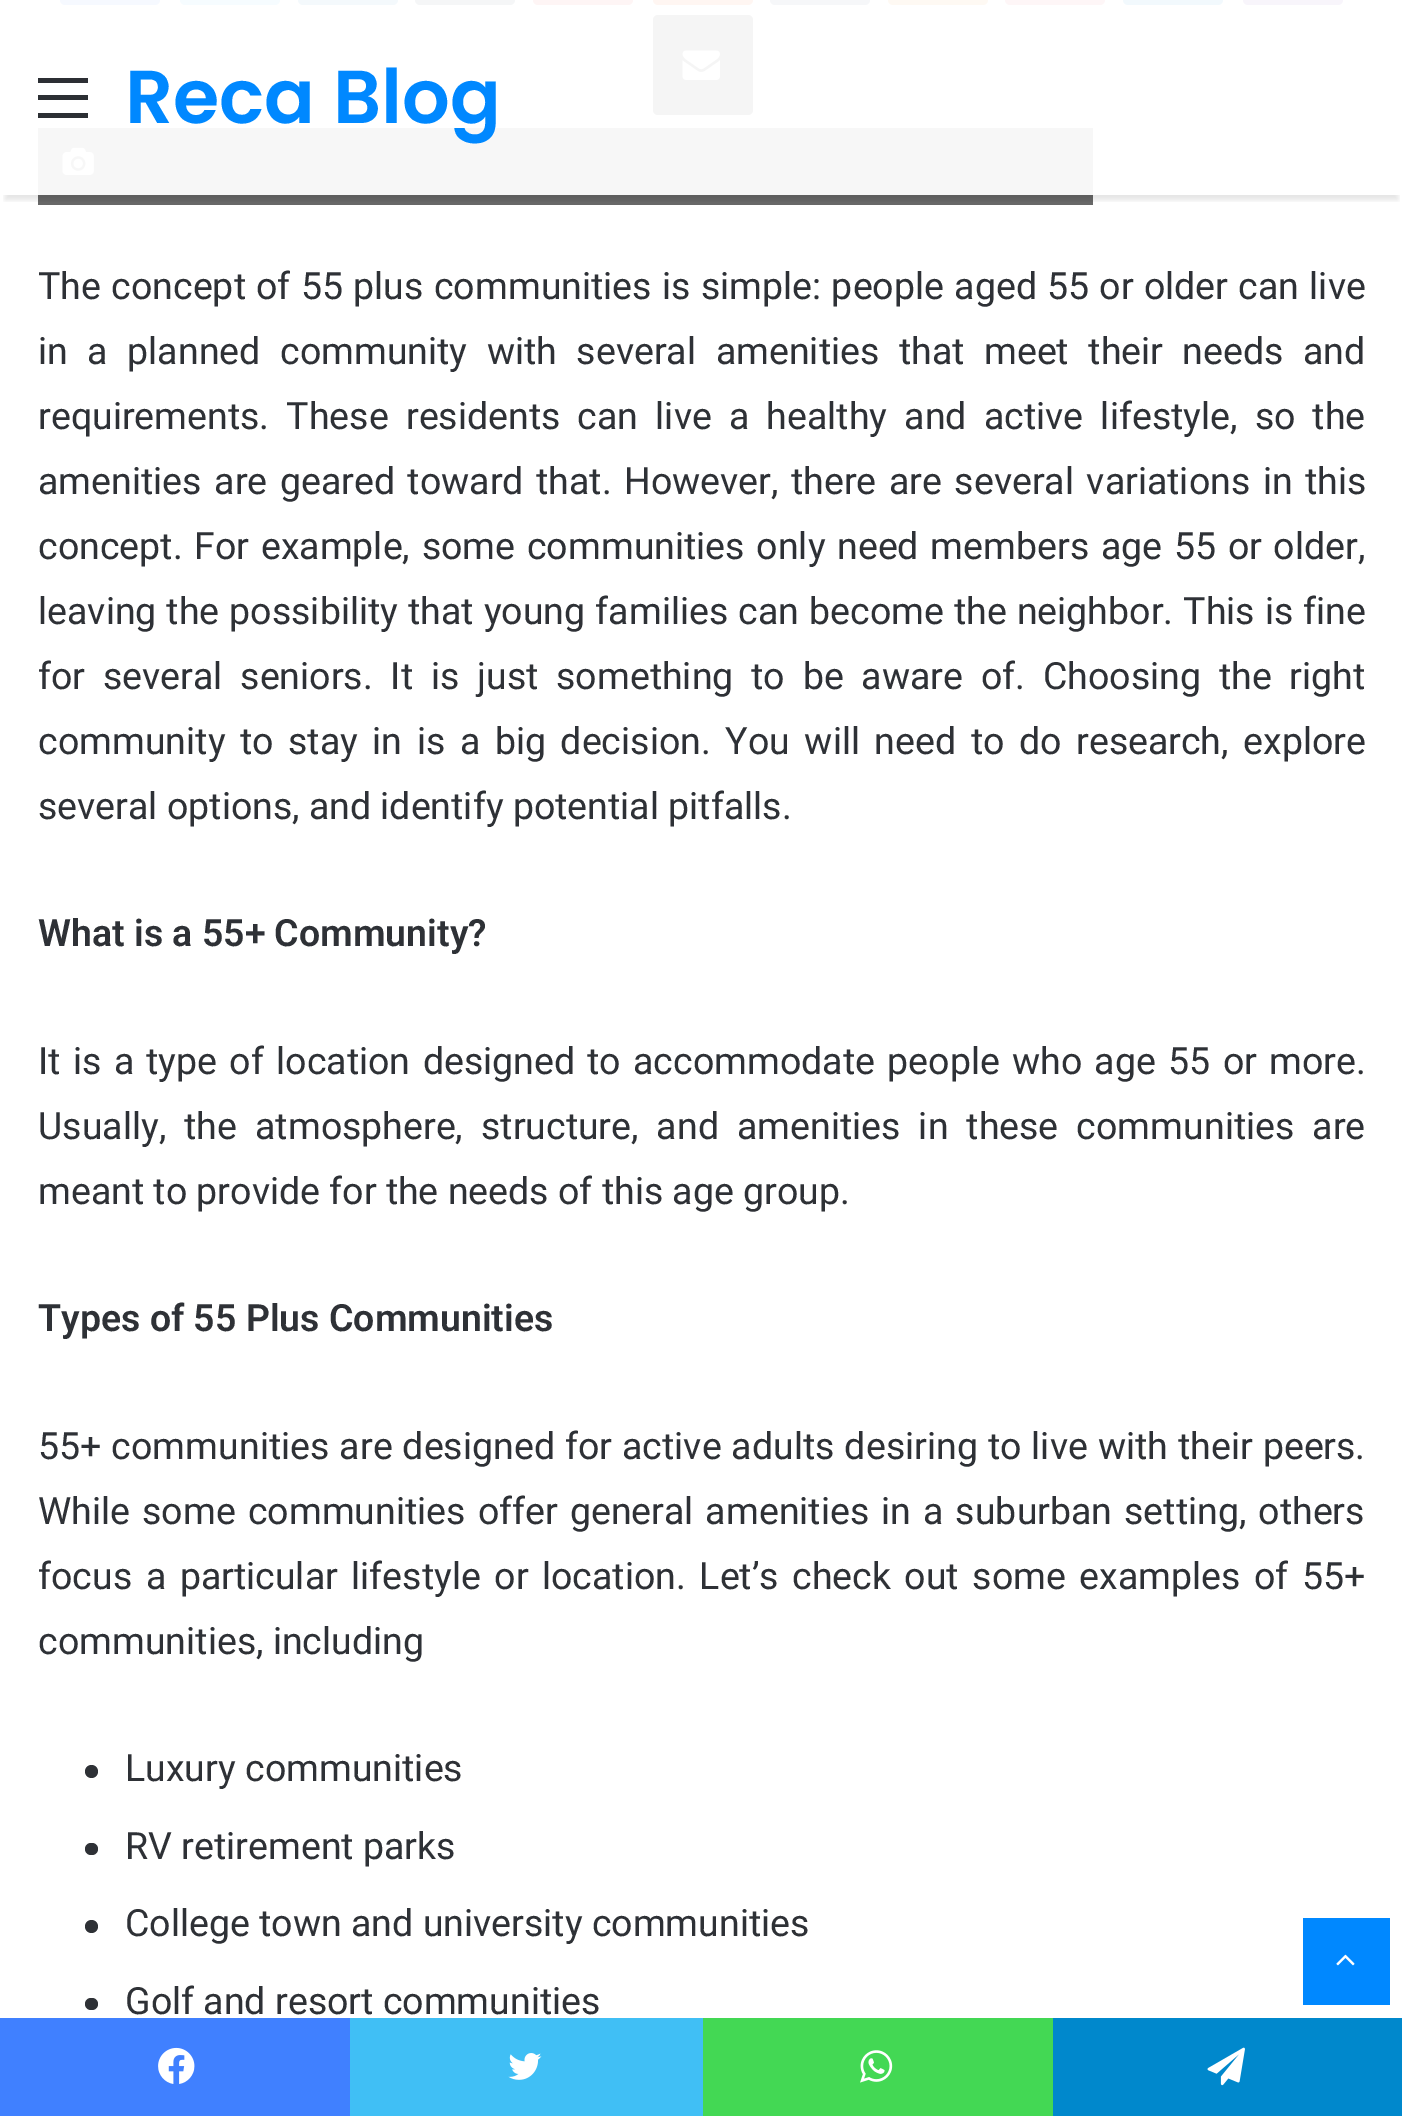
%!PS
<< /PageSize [1402 2116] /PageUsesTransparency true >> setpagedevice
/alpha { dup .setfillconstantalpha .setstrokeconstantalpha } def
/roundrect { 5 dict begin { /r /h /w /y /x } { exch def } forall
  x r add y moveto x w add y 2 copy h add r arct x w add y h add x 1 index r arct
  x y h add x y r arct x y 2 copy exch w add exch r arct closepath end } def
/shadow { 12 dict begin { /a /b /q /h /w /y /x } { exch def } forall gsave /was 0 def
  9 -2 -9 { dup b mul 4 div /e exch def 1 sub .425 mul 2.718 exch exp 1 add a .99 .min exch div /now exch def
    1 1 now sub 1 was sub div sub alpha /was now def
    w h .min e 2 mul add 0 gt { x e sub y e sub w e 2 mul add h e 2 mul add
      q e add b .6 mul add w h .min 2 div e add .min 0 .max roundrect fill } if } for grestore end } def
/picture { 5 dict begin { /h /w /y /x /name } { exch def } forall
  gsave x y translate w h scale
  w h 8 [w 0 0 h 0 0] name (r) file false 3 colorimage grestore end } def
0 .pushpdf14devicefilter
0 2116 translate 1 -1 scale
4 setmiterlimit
1 setgray
0 0 1402 2116 rectfill
0.961 setgray
653 15 100 100 5 roundrect fill
(img1.rgb) 682 50 38 30 picture
0.408 setgray
38 195 1055 10 rectfill
0.969 setgray
38 128 1055 67 rectfill
(img2.rgb) 62 147 32 28 picture
gsave
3 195 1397 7 rectclip
0 setgray
5 15 1393 185 0 2.5 0.1 shadow
grestore
0.173 0.184 0.204 setrgbcolor
38 95 50 5 rectfill
38 78 50 5 rectfill
38 113 50 5 rectfill
/Poppins-SemiBold [75 0 0 -75 0 0] selectfont
0 0.533 1 setrgbcolor
125 123 moveto (Reca Blog) show
0.965 0.976 1 setrgbcolor
60 -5 100 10 5 roundrect fill
0.965 0.988 1 setrgbcolor
180 -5 100 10 5 roundrect fill
0.957 0.976 0.988 setrgbcolor
298 -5 100 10 5 roundrect fill
0.961 0.965 0.969 setrgbcolor
415 -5 100 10 5 roundrect fill
0.996 0.961 0.961 setrgbcolor
533 -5 100 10 5 roundrect fill
1 0.965 0.949 setrgbcolor
653 -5 100 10 5 roundrect fill
0.965 0.969 0.976 setrgbcolor
770 -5 100 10 5 roundrect fill
0.996 0.976 0.953 setrgbcolor
888 -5 100 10 5 roundrect fill
0.996 0.965 0.969 setrgbcolor
1005 -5 100 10 5 roundrect fill
0.949 0.976 0.992 setrgbcolor
1123 -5 100 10 5 roundrect fill
0.973 0.961 0.984 setrgbcolor
1243 -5 100 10 5 roundrect fill
/Roboto-Regular [37.5 0 0 -37.5 0 0] selectfont
0.18 0.192 0.212 setrgbcolor
38 299 moveto 1 0 32 (The concept of 55 plus communities is simple: people aged 55 or older can live) widthshow
38 364 moveto 10.25 0 32 (in a planned community with several amenities that meet their needs and) widthshow
38 429 moveto 7.9 0 32 (requirements. These residents can live a healthy and active lifestyle, so the) widthshow
38 494 moveto 3.25 0 32 (amenities are geared toward that. However, there are several variations in this) widthshow
38 559 moveto 2.4 0 32 (concept. For example, some communities only need members age 55 or older,) widthshow
38 624 moveto 0.75 0 32 (leaving the possibility that young families can become the neighbor. This is fine) widthshow
38 689 moveto 8.5 0 32 (for several seniors. It is just something to be aware of. Choosing the right) widthshow
38 754 moveto 5.25 0 32 (community to stay in is a big decision. You will need to do research, explore) widthshow
38 819 moveto (several options, and identify potential pitfalls.) show
/Roboto-SemiBold [37.5 0 0 -37.5 0 0] selectfont
38 946 moveto (What is a 55+ Community?) show
/Roboto-Regular [37.5 0 0 -37.5 0 0] selectfont
38 1074 moveto 3 0 32 (It is a type of location designed to accommodate people who age 55 or more.) widthshow
38 1139 moveto 8.75 0 32 (Usually, the atmosphere, structure, and amenities in these communities are) widthshow
38 1204 moveto (meant to provide for the needs of this age group.) show
/Roboto-SemiBold [37.5 0 0 -37.5 0 0] selectfont
38 1331 moveto (Types of 55 Plus Communities) show
/Roboto-Regular [37.5 0 0 -37.5 0 0] selectfont
38 1459 moveto 0.75 0 32 (55+ communities are designed for active adults desiring to live with their peers.) widthshow
38 1524 moveto 2.75 0 32 (While some communities offer general amenities in a suburban setting, others) widthshow
38 1589 moveto 4.25 0 32 (focus a particular lifestyle or location. Let’s check out some examples of 55+) widthshow
38 1654 moveto (communities, including) show
newpath 91.5 1771.5 6.5 0 360 arc closepath fill
125 1781 moveto (Luxury communities) show
85 1843 13 12 6 roundrect fill
125 1859 moveto (RV retirement parks) show
newpath 91.5 1926.5 6.5 0 360 arc closepath fill
125 1936 moveto (College town and university communities) show
85 1998 13 12 6 roundrect fill
125 2014 moveto (Golf and resort communities) show
0 0.533 1 setrgbcolor
1303 1918 87 87 rectfill
(img3.rgb) 1336 1954 19 12 picture
0.251 0.502 1 setrgbcolor
0 2018 350 98 rectfill
(img4.rgb) 158 2047 37 37 picture
0.251 0.749 0.961 setrgbcolor
350 2018 353 98 rectfill
(img5.rgb) 508 2053 34 27 picture
0.263 0.847 0.329 setrgbcolor
703 2018 350 98 rectfill
(img6.rgb) 860 2050 33 33 picture
0 0.533 0.8 setrgbcolor
1053 2018 349 98 rectfill
(img7.rgb) 1207 2047 38 39 picture
.poppdf14devicefilter showpage
